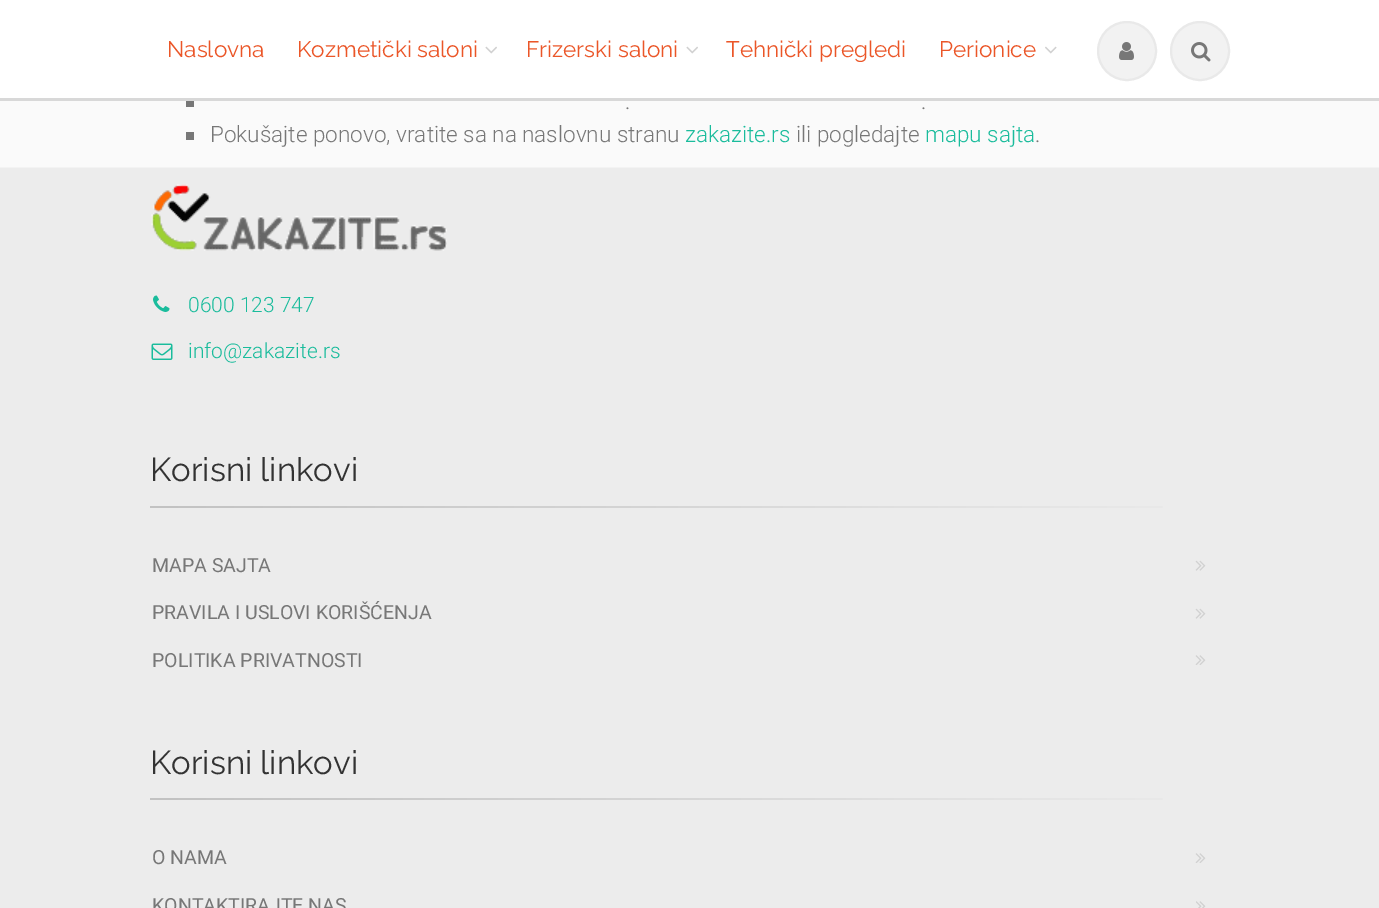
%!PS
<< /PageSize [1379 908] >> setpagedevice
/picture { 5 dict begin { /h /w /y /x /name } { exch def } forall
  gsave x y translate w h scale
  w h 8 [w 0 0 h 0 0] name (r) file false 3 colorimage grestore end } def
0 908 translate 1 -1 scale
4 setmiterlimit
0.98 setgray
0 0 1379 908 rectfill
1 setgray
0 0 1379 98 rectfill
0.847 setgray
0 98 1379 3 rectfill
/Raleway-Regular [22.5 0 0 -22.5 0 0] selectfont
0.922 0.337 0.157 setrgbcolor
167 57 moveto (Naslovna) show
297 57 moveto (Kozmetički saloni) show
(img1.rgb) 485 46 12 8 picture
526 57 moveto (Frizerski saloni) show
(img1.rgb) 686 46 12 8 picture
726 57 moveto (Tehnički pregledi) show
939 57 moveto (Perionice) show
(img2.rgb) 1045 46 12 8 picture
0.949 setgray
newpath 1127 51 29 0 360 arc closepath gsave fill grestore
0.914 setgray
2 setlinewidth
stroke
(img3.rgb) 1119 42 15 18 picture
0.949 setgray
newpath 1200 51 29 0 360 arc closepath gsave fill grestore
0.914 setgray
stroke
(img4.rgb) 1191 42 20 20 picture
0.953 setgray
0 167 1379 1 rectfill
0.467 setgray
186 101 8 6 rectfill
/Roboto-Light [22.5 0 0 -22.5 0 0] selectfont
625 109 moveto (.) show
921 109 moveto (.) show
186 132 8 8 rectfill
210 142 moveto (Pokušajte ponovo, vratite sa na naslovnu stranu) show
0.102 0.737 0.612 setrgbcolor
685 142 moveto (zakazite.rs) show
0.467 setgray
796 142 moveto (ili pogledajte) show
0.102 0.737 0.612 setrgbcolor
925 142 moveto (mapu sajta) show
0.467 setgray
1035 142 moveto (.) show
0.925 setgray
0 168 1379 740 rectfill
(img5.rgb) 151 184 296 67 picture
(img6.rgb) 153 295 17 17 picture
/Roboto-Light [21 0 0 -21 0 0] selectfont
0.102 0.737 0.612 setrgbcolor
188 312 moveto (0600 123 747) show
(img7.rgb) 151 343 22 17 picture
188 358 moveto (info@zakazite.rs) show
/Raleway-Regular [33 0 0 -33 0 0] selectfont
0.2 setgray
150 481 moveto (Korisni linkovi) show
gsave newpath 150 506 moveto 1163 506 lineto 1163 508 lineto 150 508 lineto closepath clip newpath
<< /ShadingType 2 /ColorSpace /DeviceRGB /Coords [150 506 1230 506] /Extend [true true] /Function << /FunctionType 3 /Domain [0 1] /Functions [<< /FunctionType 2 /Domain [0 1] /C0 [0.761 0.761 0.761] /C1 [0.816 0.816 0.816] /N 1 >> << /FunctionType 2 /Domain [0 1] /C0 [0.816 0.816 0.816] /C1 [0.878 0.878 0.878] /N 1 >> << /FunctionType 2 /Domain [0 1] /C0 [0.878 0.878 0.878] /C1 [0.925 0.925 0.925] /N 1 >>] /Bounds [0.35 0.7] /Encode [0 1 0 1 0 1] >> >> shfill grestore
/Roboto-Regular [19.5 0 0 -19.5 0 0] selectfont
0.467 setgray
152 572 moveto (MAPA SAJTA) show
(img8.rgb) 1195 560 11 11 picture
152 619 moveto (PRAVILA I USLOVI KORIŠĆENJA) show
(img8.rgb) 1195 608 11 11 picture
152 667 moveto (POLITIKA PRIVATNOSTI) show
(img9.rgb) 1195 655 11 10 picture
/Raleway-Regular [33 0 0 -33 0 0] selectfont
0.2 setgray
150 774 moveto (Korisni linkovi) show
gsave newpath 150 798 moveto 1163 798 lineto 1163 800 lineto 150 800 lineto closepath clip newpath
<< /ShadingType 2 /ColorSpace /DeviceRGB /Coords [150 799 1230 799] /Extend [true true] /Function << /FunctionType 3 /Domain [0 1] /Functions [<< /FunctionType 2 /Domain [0 1] /C0 [0.761 0.761 0.761] /C1 [0.816 0.816 0.816] /N 1 >> << /FunctionType 2 /Domain [0 1] /C0 [0.816 0.816 0.816] /C1 [0.878 0.878 0.878] /N 1 >> << /FunctionType 2 /Domain [0 1] /C0 [0.878 0.878 0.878] /C1 [0.925 0.925 0.925] /N 1 >>] /Bounds [0.35 0.7] /Encode [0 1 0 1 0 1] >> >> shfill grestore
/Roboto-Regular [19.5 0 0 -19.5 0 0] selectfont
0.467 setgray
152 864 moveto (O NAMA) show
(img9.rgb) 1195 853 11 10 picture
152 912 moveto (KONTAKTIRAJTE NAS) show
(img10.rgb) 1196 901 10 7 picture
showpage
